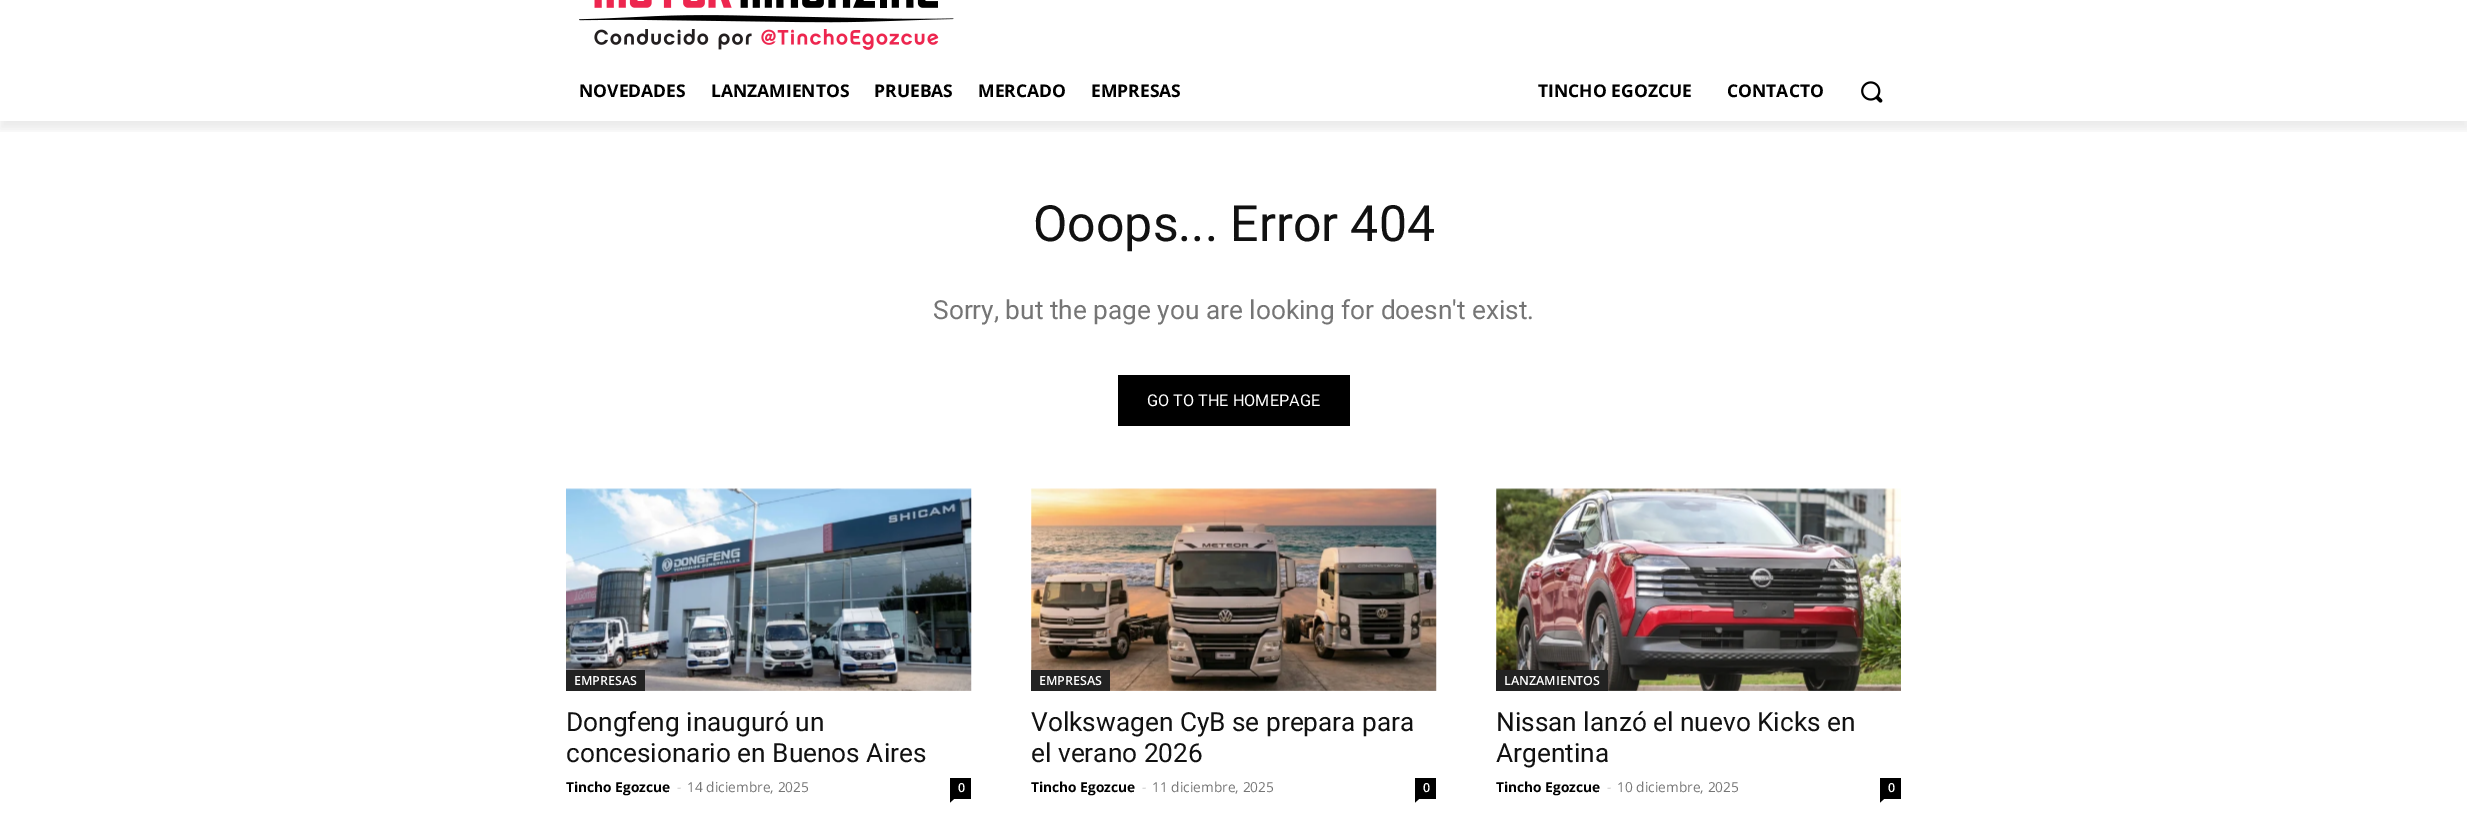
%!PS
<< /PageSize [2467 836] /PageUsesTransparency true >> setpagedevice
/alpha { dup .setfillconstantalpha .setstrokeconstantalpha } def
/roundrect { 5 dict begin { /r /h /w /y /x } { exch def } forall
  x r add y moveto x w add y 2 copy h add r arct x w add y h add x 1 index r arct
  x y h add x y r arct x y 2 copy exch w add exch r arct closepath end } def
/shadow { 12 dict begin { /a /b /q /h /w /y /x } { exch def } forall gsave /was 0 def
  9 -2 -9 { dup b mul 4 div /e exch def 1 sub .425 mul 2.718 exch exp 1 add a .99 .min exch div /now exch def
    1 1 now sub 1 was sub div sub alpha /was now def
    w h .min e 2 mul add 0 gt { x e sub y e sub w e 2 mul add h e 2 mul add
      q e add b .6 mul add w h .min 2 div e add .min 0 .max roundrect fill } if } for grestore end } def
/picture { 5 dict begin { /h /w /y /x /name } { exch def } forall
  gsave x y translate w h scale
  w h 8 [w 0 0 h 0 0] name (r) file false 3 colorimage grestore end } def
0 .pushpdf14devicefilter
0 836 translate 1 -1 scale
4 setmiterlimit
1 setgray
0 0 2467 836 rectfill
(img1.rgb) 579 0 375 50 picture
gsave
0 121 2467 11 rectclip
0 setgray
0 -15 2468 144 0 5 0.08 shadow
grestore
/OpenSans-Bold [17.5 0 0 -17.5 0 0] selectfont
0 setgray
579 97 moveto (NOVEDADES) show
711 97 moveto (LANZAMIENTOS) show
874 97 moveto (PRUEBAS) show
978 97 moveto (MERCADO) show
1091 97 moveto (EMPRESAS) show
1538 97 moveto (TINCHO EGOZCUE) show
1727 97 moveto (CONTACTO) show
(img2.rgb) 1861 81 22 22 picture
/Roboto-Regular [50 0 0 -50 0 0] selectfont
0.067 setgray
1033 241 moveto (Ooops... Error 404) show
/Roboto-Regular [26.25 0 0 -26.25 0 0] selectfont
0.459 setgray
933 319 moveto (Sorry, but the page you are looking for doesn't exist.) show
0 setgray
1118 375 232 51 rectfill
/Roboto-Regular [16.25 0 0 -16.25 0 0] selectfont
1 setgray
1147 406 moveto (GO TO THE HOMEPAGE) show
(img3.rgb) 566 488 406 203 picture
0.133 setgray
566 670 79 21 rectfill
/OpenSans-SemiBold [12.5 0 0 -12.5 0 0] selectfont
1 setgray
574 685 moveto (EMPRESAS) show
/Roboto-Regular [26.25 0 0 -26.25 0 0] selectfont
0.067 setgray
566 731 moveto (Dongfeng inauguró un) show
566 762 moveto (concesionario en Buenos Aires) show
/OpenSans-Bold [13.75 0 0 -13.75 0 0] selectfont
0 setgray
566 792 moveto (Tincho Egozcue) show
/OpenSans-Regular [13.75 0 0 -13.75 0 0] selectfont
0.8 setgray
677 792 moveto (-) show
0.459 setgray
687 792 moveto (14 diciembre, 2025) show
0 setgray
950 778 21 21 rectfill
/OpenSans-SemiBold [12.5 0 0 -12.5 0 0] selectfont
1 setgray
958 792 moveto (0) show
0 setgray
newpath 950 799 moveto 954 799 lineto 950 802.5 lineto closepath fill
(img4.rgb) 1031 488 406 203 picture
0.133 setgray
1031 670 79 21 rectfill
1 setgray
1039 685 moveto (EMPRESAS) show
/Roboto-Regular [26.25 0 0 -26.25 0 0] selectfont
0.067 setgray
1031 731 moveto (Volkswagen CyB se prepara para) show
1031 762 moveto (el verano 2026) show
/OpenSans-Bold [13.75 0 0 -13.75 0 0] selectfont
0 setgray
1031 792 moveto (Tincho Egozcue) show
/OpenSans-Regular [13.75 0 0 -13.75 0 0] selectfont
0.8 setgray
1142 792 moveto (-) show
0.459 setgray
1152 792 moveto (11 diciembre, 2025) show
0 setgray
1415 778 21 21 rectfill
/OpenSans-SemiBold [12.5 0 0 -12.5 0 0] selectfont
1 setgray
1423 792 moveto (0) show
0 setgray
newpath 1415 799 moveto 1419 799 lineto 1415 802.5 lineto closepath fill
(img5.rgb) 1496 488 405 203 picture
0.133 setgray
1496 670 112 21 rectfill
1 setgray
1504 685 moveto (LANZAMIENTOS) show
/Roboto-Regular [26.25 0 0 -26.25 0 0] selectfont
0.067 setgray
1496 731 moveto (Nissan lanzó el nuevo Kicks en) show
1496 762 moveto (Argentina) show
/OpenSans-Bold [13.75 0 0 -13.75 0 0] selectfont
0 setgray
1496 792 moveto (Tincho Egozcue) show
/OpenSans-Regular [13.75 0 0 -13.75 0 0] selectfont
0.8 setgray
1607 792 moveto (-) show
0.459 setgray
1617 792 moveto (10 diciembre, 2025) show
0 setgray
1880 778 21 21 rectfill
/OpenSans-SemiBold [12.5 0 0 -12.5 0 0] selectfont
1 setgray
1888 792 moveto (0) show
0 setgray
newpath 1880 799 moveto 1884 799 lineto 1880 802.5 lineto closepath fill
.poppdf14devicefilter showpage
